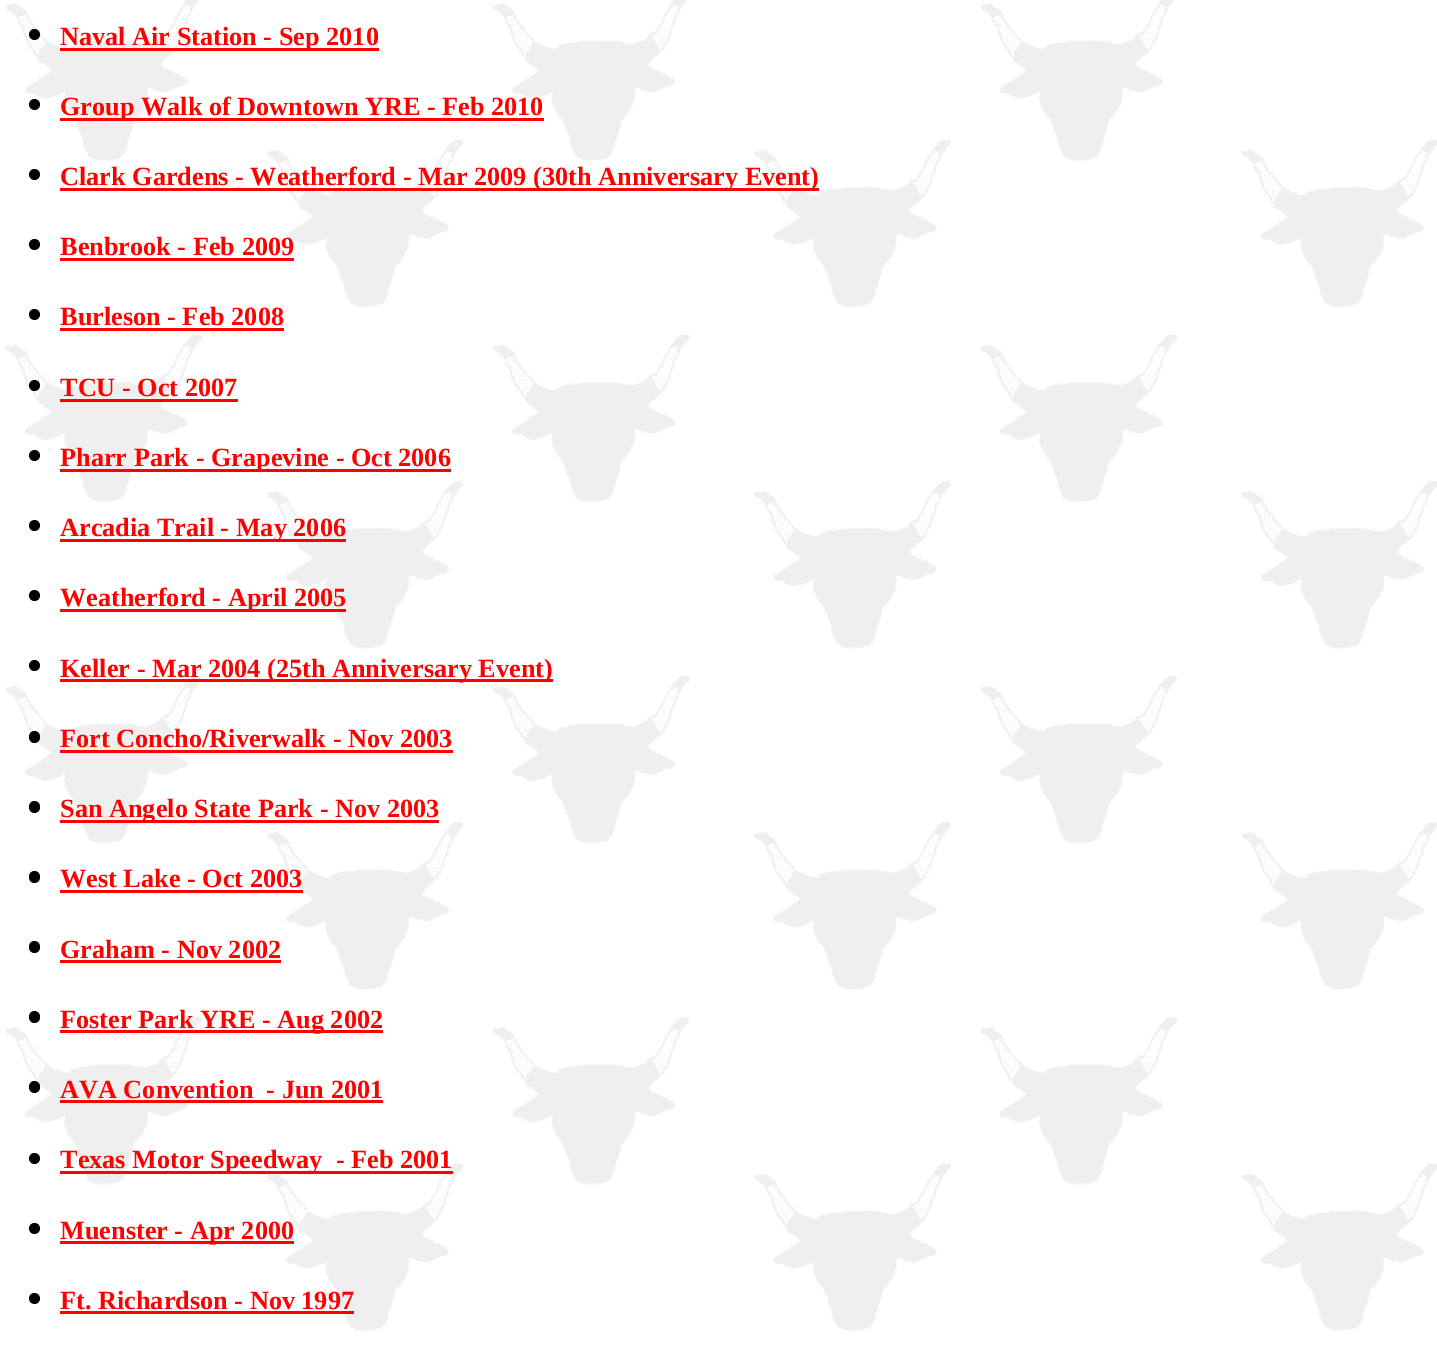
%!PS
<< /PageSize [1437 1345] >> setpagedevice
/roundrect { 5 dict begin { /r /h /w /y /x } { exch def } forall
  x r add y moveto x w add y 2 copy h add r arct x w add y h add x 1 index r arct
  x y h add x y r arct x y 2 copy exch w add exch r arct closepath end } def
/picture { 5 dict begin { /h /w /y /x /name } { exch def } forall
  gsave x y translate w h scale
  w h 8 [w 0 0 h 0 0] name (r) file false 3 colorimage grestore end } def
0 1345 translate 1 -1 scale
4 setmiterlimit
1 setgray
0 0 1437 1345 rectfill
(img1.rgb) 5 0 1432 1331 picture
0 setgray
newpath 34.5 34.5 5.5 0 360 arc closepath fill
1 0 0 setrgbcolor
60 48 319 3 rectfill
/LiberationSerif-Bold [26.25 0 0 -26.25 0 0] selectfont
60 45 moveto (Naval Air Station - Sep 2010) show
0 setgray
newpath 34.5 104.5 5.5 0 360 arc closepath fill
1 0 0 setrgbcolor
60 118 484 3 rectfill
60 115 moveto (Group Walk of Downtown YRE - Feb 2010) show
0 setgray
newpath 34.5 174.5 5.5 0 360 arc closepath fill
1 0 0 setrgbcolor
60 188 759 3 rectfill
60 185 moveto (Clark Gardens - Weatherford - Mar 2009 \(30th Anniversary Event\)) show
0 setgray
newpath 34.5 244.5 5.5 0 360 arc closepath fill
1 0 0 setrgbcolor
60 255 moveto (Benbrook - Feb 2009) show
60 258 234 3 rectfill
0 setgray
newpath 34.5 314.5 5.5 0 360 arc closepath fill
1 0 0 setrgbcolor
60 325 moveto (Burleson - Feb 2008) show
60 328 224 3 rectfill
0 setgray
newpath 34.5 385.5 5.5 0 360 arc closepath fill
1 0 0 setrgbcolor
60 396 moveto (TCU - Oct 2007) show
60 399 178 3 rectfill
0 setgray
newpath 34.5 455.5 5.5 0 360 arc closepath fill
1 0 0 setrgbcolor
60 469 391 3 rectfill
60 466 moveto (Pharr Park - Grapevine - Oct 2006) show
0 setgray
newpath 34.5 525.5 5.5 0 360 arc closepath fill
1 0 0 setrgbcolor
60 539 286 3 rectfill
60 536 moveto (Arcadia Trail - May 2006) show
0 setgray
newpath 34.5 595.5 5.5 0 360 arc closepath fill
1 0 0 setrgbcolor
60 609 286 3 rectfill
60 606 moveto (Weatherford - April 2005) show
0 setgray
newpath 34.5 665.5 5.5 0 360 arc closepath fill
1 0 0 setrgbcolor
60 679 493 3 rectfill
60 677 moveto (Keller - Mar 2004 \(25th Anniversary Event\)) show
0 setgray
29 731 11 12 5.5 roundrect fill
1 0 0 setrgbcolor
60 747 moveto (Fort Concho/Riverwalk - Nov 2003) show
60 750 393 3 rectfill
0 setgray
29 801 11 12 5.5 roundrect fill
1 0 0 setrgbcolor
60 820 379 3 rectfill
60 817 moveto (San Angelo State Park - Nov 2003) show
0 setgray
29 871 11 12 5.5 roundrect fill
1 0 0 setrgbcolor
60 887 moveto (West Lake - Oct 2003) show
60 890 243 3 rectfill
0 setgray
29 941 11 12 5.5 roundrect fill
1 0 0 setrgbcolor
60 958 moveto (Graham - Nov 2002) show
60 960 221 3 rectfill
0 setgray
29 1011 11 12 5.5 roundrect fill
1 0 0 setrgbcolor
60 1030 323 3 rectfill
60 1028 moveto (Foster Park YRE - Aug 2002) show
0 setgray
29 1081 11 12 5.5 roundrect fill
1 0 0 setrgbcolor
60 1098 moveto (AVA Convention  - Jun 2001) show
60 1100 323 3 rectfill
0 setgray
newpath 34.5 1158.5 5.5 0 360 arc closepath fill
1 0 0 setrgbcolor
60 1171 393 3 rectfill
60 1168 moveto (Texas Motor Speedway  - Feb 2001) show
0 setgray
newpath 34.5 1228.5 5.5 0 360 arc closepath fill
1 0 0 setrgbcolor
60 1241 234 3 rectfill
60 1239 moveto (Muenster - Apr 2000) show
0 setgray
newpath 34.5 1298.5 5.5 0 360 arc closepath fill
1 0 0 setrgbcolor
60 1309 moveto (Ft. Richardson - Nov 1997) show
60 1311 294 3 rectfill
showpage
